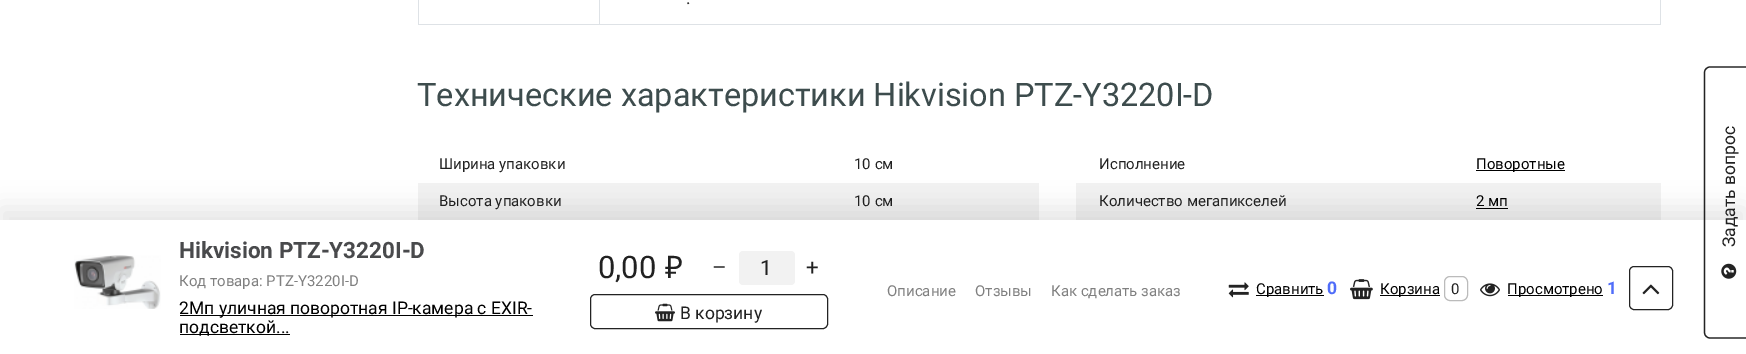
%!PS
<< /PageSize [1746 354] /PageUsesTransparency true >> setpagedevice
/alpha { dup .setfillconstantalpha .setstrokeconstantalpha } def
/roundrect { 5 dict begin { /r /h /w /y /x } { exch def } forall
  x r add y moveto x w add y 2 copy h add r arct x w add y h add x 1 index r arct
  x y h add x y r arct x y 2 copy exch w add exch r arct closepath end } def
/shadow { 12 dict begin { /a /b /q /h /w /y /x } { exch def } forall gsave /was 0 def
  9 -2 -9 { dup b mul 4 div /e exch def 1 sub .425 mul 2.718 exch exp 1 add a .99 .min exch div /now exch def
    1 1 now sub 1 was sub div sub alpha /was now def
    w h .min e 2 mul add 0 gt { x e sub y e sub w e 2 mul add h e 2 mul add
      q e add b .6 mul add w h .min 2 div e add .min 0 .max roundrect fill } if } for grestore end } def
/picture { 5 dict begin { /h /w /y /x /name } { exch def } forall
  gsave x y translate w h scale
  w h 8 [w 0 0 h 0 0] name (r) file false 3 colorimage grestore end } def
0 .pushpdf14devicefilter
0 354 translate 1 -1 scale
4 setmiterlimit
1 setgray
0 0 1746 354 rectfill
0.871 0.886 0.902 setrgbcolor
1660 0 1 25 rectfill
418 24 1243 1 rectfill
418 0 1 25 rectfill
599 0 1 25 rectfill
/Roboto-Regular [17.5 0 0 -17.5 0 0] selectfont
0.129 setgray
686 4 moveto (.) show
/Roboto-Regular [32.5 0 0 -32.5 0 0] selectfont
0.239 0.298 0.302 setrgbcolor
417 106 moveto (Технические характеристики Hikvision PTZ-Y3220I-D) show
/Roboto-Regular [15 0 0 -15 0 0] selectfont
0.129 setgray
439 169 moveto (Ширина упаковки) show
854 169 moveto (10 см) show
0.949 setgray
418 183 621 37 rectfill
0.129 setgray
439 206 moveto (Высота упаковки) show
854 206 moveto (10 см) show
1099 169 moveto (Исполнение) show
0 setgray
1476 170 89 1 rectfill
1476 169 moveto (Поворотные) show
0.949 setgray
1076 183 585 37 rectfill
0.129 setgray
1099 206 moveto (Количество мегапикселей) show
0 setgray
1476 206 moveto (2 мп) show
1476 208 32 1 rectfill
0 208 1746 135 0 12.5 0.1 shadow
1 setgray
0 220 1746 134 rectfill
0.137 setgray
1.2 setlinewidth
newpath 1704.5 332.5 moveto 1704.5 72.5 lineto 1704.5 69.5 1707 67 1710 67 curveto 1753 67 lineto 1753 338 lineto 1710 338 lineto 1707 338 1704.5 335.5 1704.5 332.5 curveto closepath stroke
/Roboto-Regular [17.5 0 0 -17.5 0 0] selectfont
0.129 setgray
gsave 1735 247 translate -90 rotate 0 0 moveto (Задать вопрос) show grestore
(img1.rgb) 1721 263 16 16 picture
(img2.rgb) 74 255 87 54 picture
/Roboto-Bold [22.5 0 0 -22.5 0 0] selectfont
0.286 0.29 0.298 setrgbcolor
179 258 moveto (Hikvision PTZ-Y3220I-D) show
/Roboto-Regular [15 0 0 -15 0 0] selectfont
0.502 setgray
179 286 moveto (Код товара: PTZ-Y3220I-D) show
0 setgray
180 315 353 1 rectfill
/Roboto-Regular [17.5 0 0 -17.5 0 0] selectfont
179 314 moveto (2Мп уличная поворотная IP-камера c EXIR-) show
180 334 110 1 rectfill
179 333 moveto (подсветкой...) show
/Roboto-Regular [31 0 0 -31 0 0] selectfont
0.129 setgray
598 278 moveto (0,00) show
/NotoSans-Regular [31 0 0 -31 0 0] selectfont
665 278 moveto (₽) show
/Roboto-Regular [22.5 0 0 -22.5 0 0] selectfont
712 275 moveto (–) show
0.949 setgray
739 251 56 34 4 roundrect fill
/Roboto-Regular [21 0 0 -21 0 0] selectfont
0.129 setgray
760 275 moveto (1) show
/Roboto-Regular [22.5 0 0 -22.5 0 0] selectfont
806 275 moveto (+) show
0.137 setgray
1 setlinewidth
590.5 294.5 237 34 4.5 roundrect stroke
(img3.rgb) 655 303 20 19 picture
/Roboto-Regular [17.5 0 0 -17.5 0 0] selectfont
0.129 setgray
680 319 moveto (В корзину) show
/Roboto-Regular [15 0 0 -15 0 0] selectfont
0.502 setgray
887 296 moveto (Описание) show
975 296 moveto (Отзывы) show
1051 296 moveto (Как сделать заказ) show
(img4.rgb) 1228 282 21 16 picture
0 setgray
1256 295 68 1 rectfill
1256 294 moveto (Сравнить) show
/Roboto-Bold [17.5 0 0 -17.5 0 0] selectfont
0.314 0.427 0.976 setrgbcolor
1327 294 moveto (0) show
(img5.rgb) 1350 279 23 21 picture
0 setgray
1380 295 60 1 rectfill
/Roboto-Regular [15 0 0 -15 0 0] selectfont
1380 294 moveto (Корзина) show
0.733 setgray
1444.5 276.5 23 24 5.5 roundrect stroke
0.129 setgray
1451 294 moveto (0) show
(img6.rgb) 1480 283 20 14 picture
0 setgray
1508 295 95 1 rectfill
1507 294 moveto (Просмотрено) show
/Roboto-Bold [17.5 0 0 -17.5 0 0] selectfont
0.314 0.427 0.976 setrgbcolor
1607 294 moveto (1) show
0.137 setgray
1629.5 266.5 43 43 4.5 roundrect stroke
(img7.rgb) 1642 284 18 11 picture
.poppdf14devicefilter showpage
